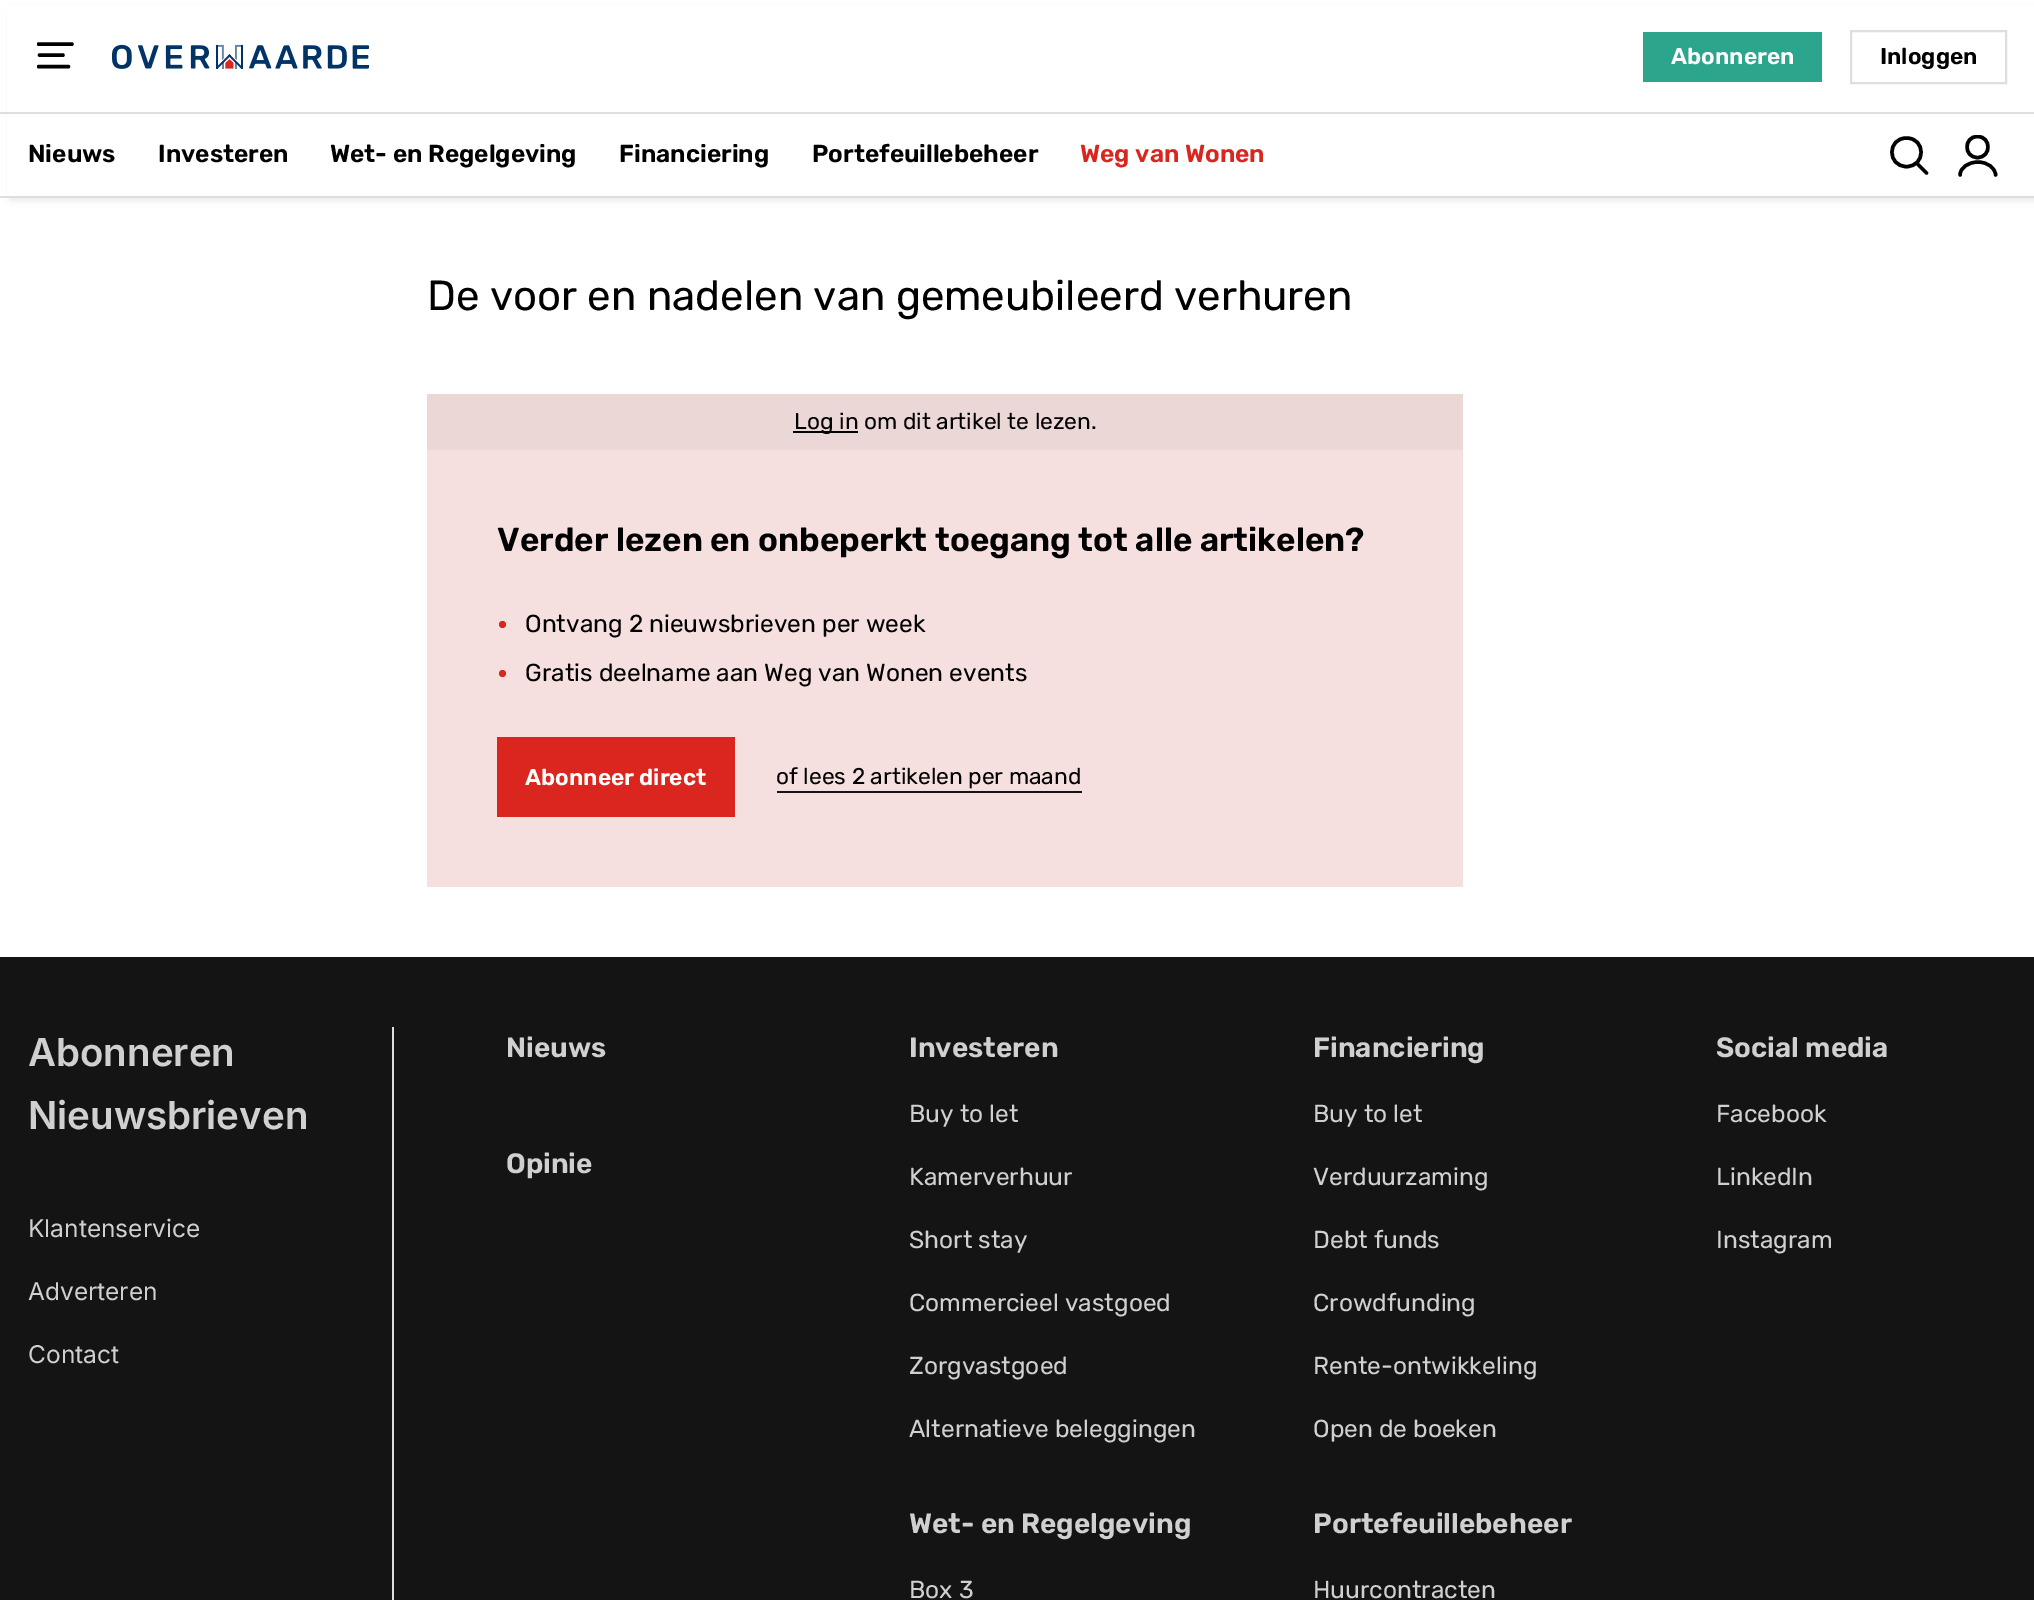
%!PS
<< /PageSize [2034 1600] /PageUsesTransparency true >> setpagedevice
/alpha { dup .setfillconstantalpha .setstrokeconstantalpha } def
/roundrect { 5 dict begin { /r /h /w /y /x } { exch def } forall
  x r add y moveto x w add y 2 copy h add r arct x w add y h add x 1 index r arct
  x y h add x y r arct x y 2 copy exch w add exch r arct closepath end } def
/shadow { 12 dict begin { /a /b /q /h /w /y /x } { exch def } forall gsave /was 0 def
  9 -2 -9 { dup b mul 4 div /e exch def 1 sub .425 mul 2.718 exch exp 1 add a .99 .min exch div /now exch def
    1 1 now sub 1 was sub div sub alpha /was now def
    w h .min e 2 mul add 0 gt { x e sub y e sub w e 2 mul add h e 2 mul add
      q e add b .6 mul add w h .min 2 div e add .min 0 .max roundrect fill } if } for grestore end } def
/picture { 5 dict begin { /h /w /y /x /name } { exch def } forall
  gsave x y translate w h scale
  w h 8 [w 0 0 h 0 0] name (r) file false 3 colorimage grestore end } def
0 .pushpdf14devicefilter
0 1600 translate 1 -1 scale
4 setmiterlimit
1 setgray
0 0 2034 1600 rectfill
0 setgray
11 9 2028 191 0 3.5 0.1 shadow
1 setgray
7 5 2027 191 rectfill
0.871 setgray
0 196 2034 2 rectfill
gsave
newpath 37 42 moveto 75 42 lineto 75 70 lineto 37 70 lineto closepath clip newpath
0 setgray
3.5 setlinewidth
1 setlinecap
1 setlinejoin
newpath 38.5 44 moveto 72 44 lineto 39.5 55 moveto 63 55 lineto 38.5 66.5 moveto 68.5 66.5 lineto stroke
grestore
(img1.rgb) 112 44 257 25 picture
0.173 0.647 0.553 setrgbcolor
1643 32 179 50 rectfill
/Rubik-SemiBold [22.75 0 0 -22.75 0 0] selectfont
1 setgray
1671 64 moveto (Abonneren) show
0.871 setgray
2 setlinewidth
1851 31 155 52 rectstroke
0 setgray
1880 64 moveto (Inloggen) show
0.871 setgray
0 112 2034 2 rectfill
/Rubik-SemiBold [24.5 0 0 -24.5 0 0] selectfont
0 setgray
28 162 moveto (Nieuws) show
158 162 moveto (Investeren) show
330 162 moveto (Wet- en Regelgeving) show
619 162 moveto (Financiering) show
812 162 moveto (Portefeuillebeheer) show
0.855 0.149 0.118 setrgbcolor
1080 162 moveto (Weg van Wonen) show
gsave
newpath 1890 136.5 moveto 1928.5 136.5 lineto 1928.5 175 lineto 1890 175 lineto closepath clip newpath
0 setgray
3.5 setlinewidth
1 setlinecap
1 setlinejoin
newpath 1906.5 166.5 moveto 1926 166.5 1926 138 1906.5 138 curveto 1887 138 1887 166.5 1906.5 166.5 curveto stroke
grestore
0 setgray
3.5 setlinewidth
1 setlinecap
1 setlinejoin
newpath 1917 163.5 moveto 1926.5 173 lineto stroke
gsave
newpath 1958 135 moveto 1998.5 135 lineto 1998.5 177 lineto 1958 177 lineto closepath clip newpath
newpath 1977.5 157.5 moveto 1991.5 157.5 1991.5 136.5 1977.5 136.5 curveto 1963.5 136.5 1963.5 157.5 1977.5 157.5 curveto stroke
3.4 setlinewidth
newpath 1960 175 moveto 1960 168 1968 162 1978 162 curveto 1987.5 162 1995.5 168 1995.5 175 curveto stroke
grestore
/Rubik-Regular [42 0 0 -42 0 0] selectfont
427 310 moveto (De voor en nadelen van gemeubileerd verhuren) show
0.922 0.843 0.839 setrgbcolor
427 394 1036 56 rectfill
0 setgray
793 431 65 2 rectfill
/Rubik-Regular [22.75 0 0 -22.75 0 0] selectfont
794 429 moveto (Log in om dit artikel te lezen.) show
0.961 0.878 0.875 setrgbcolor
427 450 1036 437 rectfill
/Rubik-SemiBold [33.25 0 0 -33.25 0 0] selectfont
0 setgray
497 551 moveto (Verder lezen en onbeperkt toegang tot alle artikelen?) show
0.855 0.149 0.118 setrgbcolor
newpath 502.5 624.5 3.5 0 360 arc closepath fill
/Rubik-Regular [24.5 0 0 -24.5 0 0] selectfont
0 setgray
525 632 moveto (Ontvang 2 nieuwsbrieven per week) show
0.855 0.149 0.118 setrgbcolor
newpath 502.5 673.5 3.5 0 360 arc closepath fill
0 setgray
525 681 moveto (Gratis deelname aan Weg van Wonen events) show
0.855 0.149 0.118 setrgbcolor
497 737 238 80 rectfill
/Rubik-SemiBold [22.75 0 0 -22.75 0 0] selectfont
1 setgray
525 785 moveto (Abonneer direct) show
/Rubik-Regular [22.75 0 0 -22.75 0 0] selectfont
0 setgray
776 784 moveto (of lees 2 artikelen per maand) show
0.078 setgray
777 791 305 2 rectfill
0 957 2034 643 rectfill
/Inter-SemiBold [38.5 0 0 -38.5 0 0] selectfont
0.816 setgray
28 1066 moveto (Abonneren) show
28 1129 moveto (Nieuwsbrieven) show
/Inter-Regular [24.5 0 0 -24.5 0 0] selectfont
28 1237 moveto (Klantenservice) show
28 1300 moveto (Adverteren) show
28 1363 moveto (Contact) show
0.871 setgray
392 1027 2 573 rectfill
/Rubik-SemiBold [28 0 0 -28 0 0] selectfont
0.816 setgray
506 1057 moveto (Nieuws) show
506 1173 moveto (Opinie) show
909 1057 moveto (Investeren) show
/Rubik-Regular [24.5 0 0 -24.5 0 0] selectfont
909 1122 moveto (Buy to let) show
909 1185 moveto (Kamerverhuur) show
909 1248 moveto (Short stay) show
909 1311 moveto (Commercieel vastgoed) show
909 1374 moveto (Zorgvastgoed) show
909 1437 moveto (Alternatieve beleggingen) show
/Rubik-SemiBold [28 0 0 -28 0 0] selectfont
909 1533 moveto (Wet- en Regelgeving) show
/Rubik-Regular [24.5 0 0 -24.5 0 0] selectfont
909 1598 moveto (Box 3) show
/Rubik-SemiBold [28 0 0 -28 0 0] selectfont
1313 1057 moveto (Financiering) show
/Rubik-Regular [24.5 0 0 -24.5 0 0] selectfont
1313 1122 moveto (Buy to let) show
1313 1185 moveto (Verduurzaming) show
1313 1248 moveto (Debt funds) show
1313 1311 moveto (Crowdfunding) show
1313 1374 moveto (Rente-ontwikkeling) show
1313 1437 moveto (Open de boeken) show
/Rubik-SemiBold [28 0 0 -28 0 0] selectfont
1313 1533 moveto (Portefeuillebeheer) show
/Rubik-Regular [24.5 0 0 -24.5 0 0] selectfont
1313 1598 moveto (Huurcontracten) show
/Rubik-SemiBold [28 0 0 -28 0 0] selectfont
1716 1057 moveto (Social media) show
/Rubik-Regular [24.5 0 0 -24.5 0 0] selectfont
1716 1122 moveto (Facebook) show
1716 1185 moveto (LinkedIn) show
1716 1248 moveto (Instagram) show
.poppdf14devicefilter showpage
